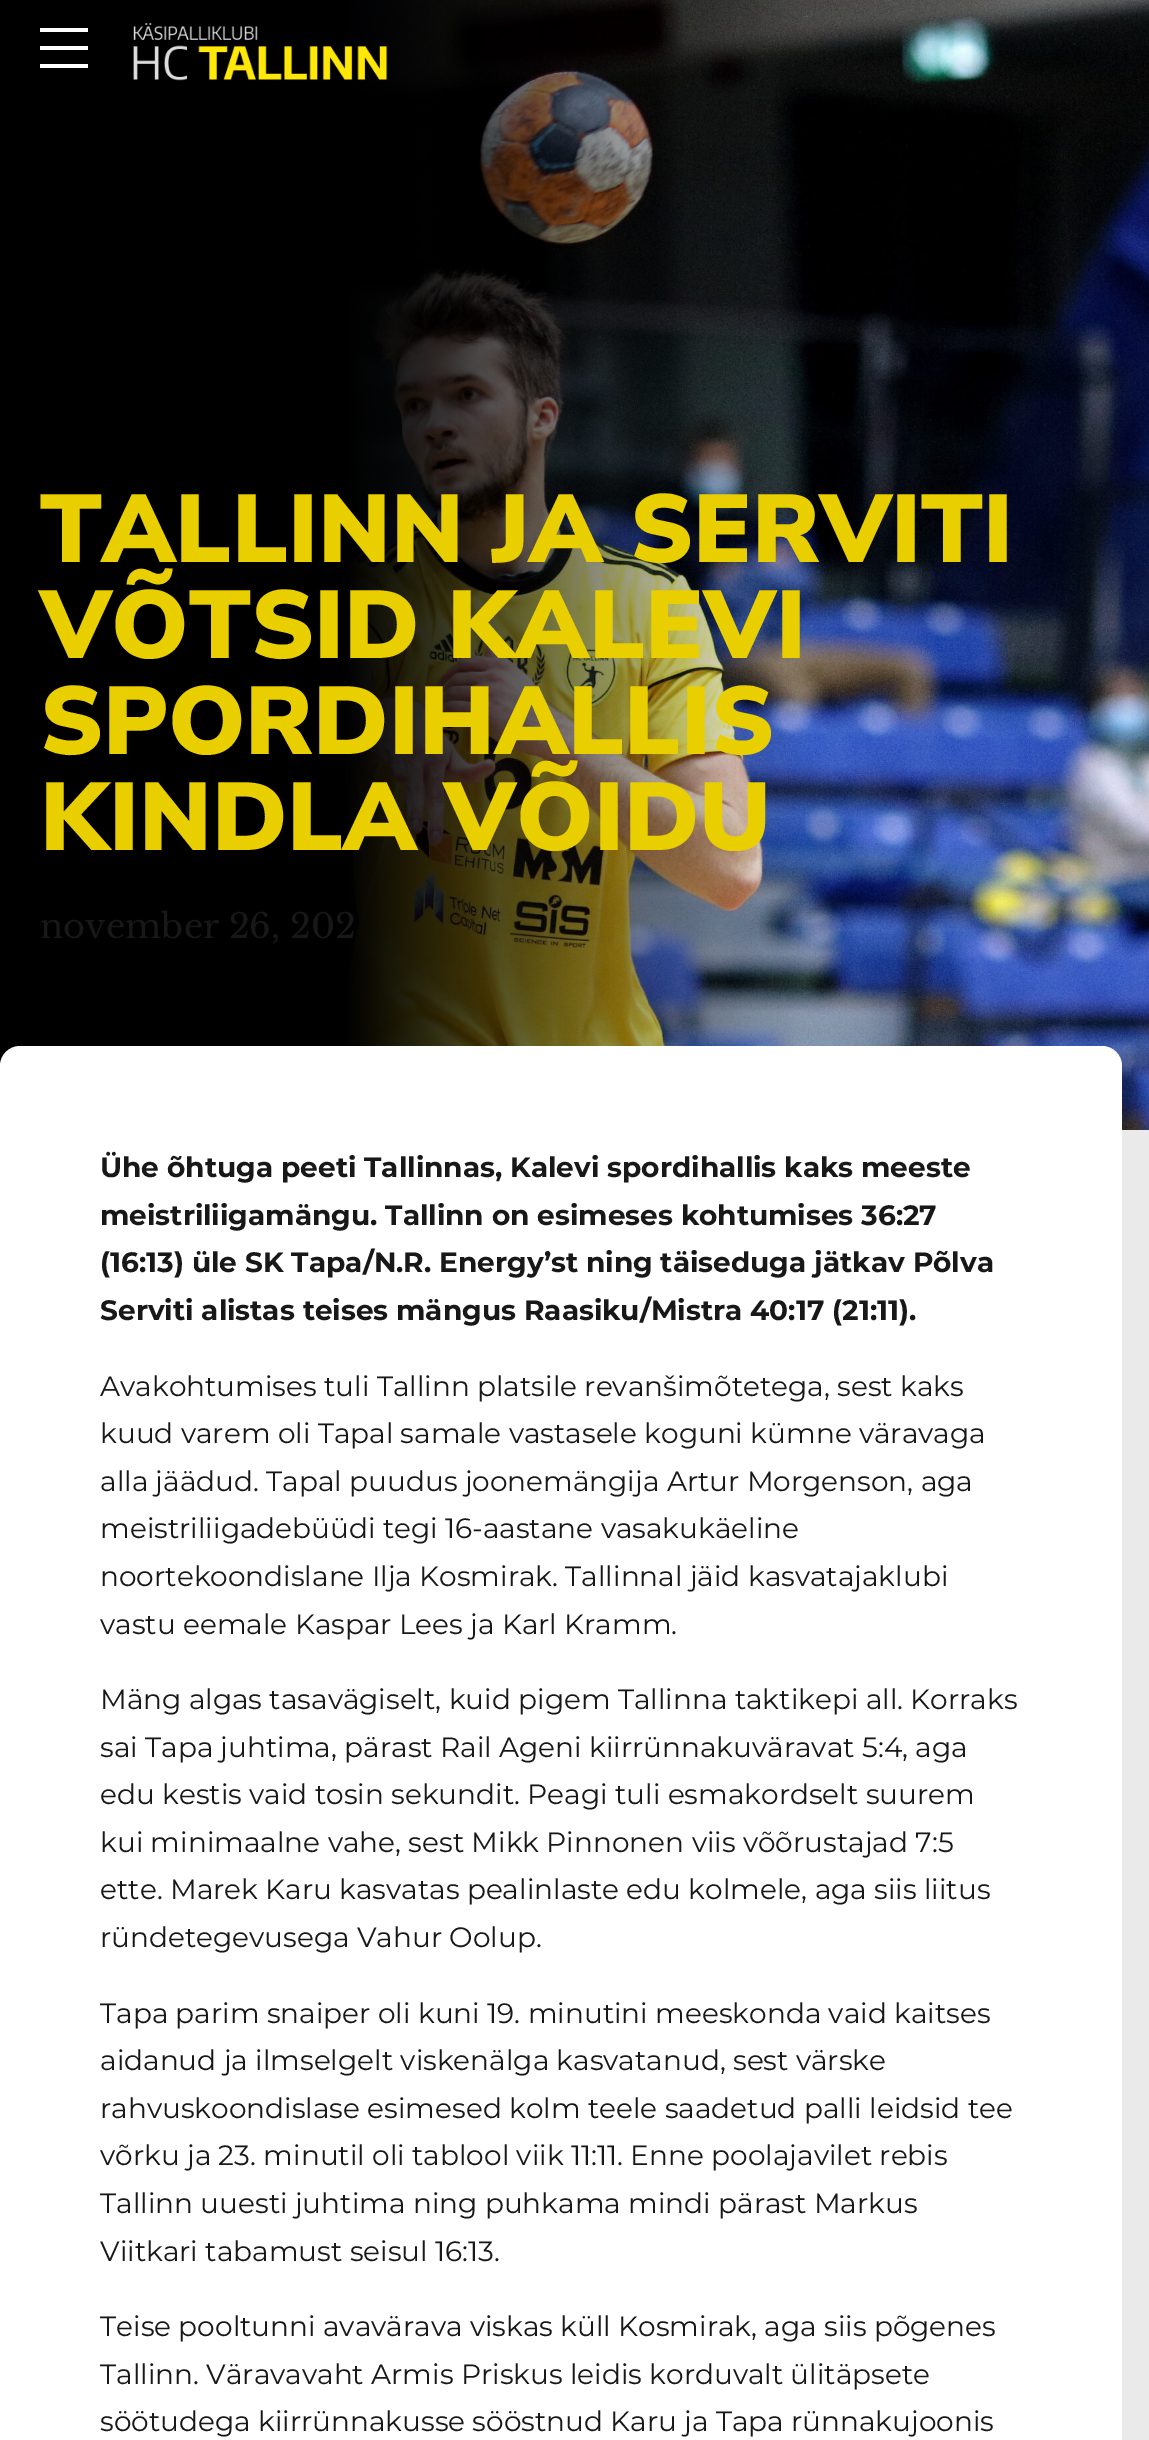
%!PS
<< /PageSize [1149 2440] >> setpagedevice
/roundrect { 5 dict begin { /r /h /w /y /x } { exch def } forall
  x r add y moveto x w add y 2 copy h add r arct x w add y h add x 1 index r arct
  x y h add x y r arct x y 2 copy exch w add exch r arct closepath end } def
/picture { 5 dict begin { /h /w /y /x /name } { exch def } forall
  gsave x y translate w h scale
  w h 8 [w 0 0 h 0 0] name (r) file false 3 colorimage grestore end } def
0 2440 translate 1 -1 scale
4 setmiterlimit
0.918 setgray
0 0 1149 2440 rectfill
(img2.rgb) 0 0 1149 1130 picture
1 setgray
40 28 48 4 rectfill
40 46 48 4 rectfill
40 64 48 4 rectfill
(img1.rgb) 133 23 255 58 picture
/NunitoSans-Black [96.25 0 0 -96.25 0 0] selectfont
0.918 0.812 0 setrgbcolor
40 562 moveto (TALLINN JA SERVITI) show
40 658 moveto (VÕTSID KALEVI) show
40 754 moveto (SPORDIHALLIS) show
40 850 moveto (KINDLA VÕIDU) show
/LibreBaskerville-Regular [33.75 0 0 -33.75 0 0] selectfont
0.094 setgray
40 938 moveto (november 26, 202) show
1 setgray
0 1046 1122 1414 20 roundrect fill
/Montserrat-Bold [28 0 0 -28 0 0] selectfont
0.094 setgray
100 1177 moveto (Ühe õhtuga peeti Tallinnas, Kalevi spordihallis kaks meeste) show
100 1225 moveto (meistriliigamängu. Tallinn on esimeses kohtumises 36:27) show
100 1272 moveto (\(16:13\) üle SK Tapa/N.R. Energy’st ning täiseduga jätkav Põlva) show
100 1320 moveto (Serviti alistas teises mängus Raasiku/Mistra 40:17 \(21:11\).) show
/Montserrat-Regular [28 0 0 -28 0 0] selectfont
100 1396 moveto (Avakohtumises tuli Tallinn platsile revanšimõtetega, sest kaks) show
100 1443 moveto (kuud varem oli Tapal samale vastasele koguni kümne väravaga) show
100 1491 moveto (alla jäädud. Tapal puudus joonemängija Artur Morgenson, aga) show
100 1538 moveto (meistriliigadebüüdi tegi 16-aastane vasakukäeline) show
100 1586 moveto (noortekoondislane Ilja Kosmirak. Tallinnal jäid kasvatajaklubi) show
100 1634 moveto (vastu eemale Kaspar Lees ja Karl Kramm.) show
100 1709 moveto (Mäng algas tasavägiselt, kuid pigem Tallinna taktikepi all. Korraks) show
100 1757 moveto (sai Tapa juhtima, pärast Rail Ageni kiirrünnakuväravat 5:4, aga) show
100 1804 moveto (edu kestis vaid tosin sekundit. Peagi tuli esmakordselt suurem) show
100 1852 moveto (kui minimaalne vahe, sest Mikk Pinnonen viis võõrustajad 7:5) show
100 1899 moveto (ette. Marek Karu kasvatas pealinlaste edu kolmele, aga siis liitus) show
100 1947 moveto (ründetegevusega Vahur Oolup.) show
100 2023 moveto (Tapa parim snaiper oli kuni 19. minutini meeskonda vaid kaitses) show
100 2070 moveto (aidanud ja ilmselgelt viskenälga kasvatanud, sest värske) show
100 2118 moveto (rahvuskoondislase esimesed kolm teele saadetud palli leidsid tee) show
100 2165 moveto (võrku ja 23. minutil oli tablool viik 11:11. Enne poolajavilet rebis) show
100 2213 moveto (Tallinn uuesti juhtima ning puhkama mindi pärast Markus) show
100 2261 moveto (Viitkari tabamust seisul 16:13.) show
100 2336 moveto (Teise pooltunni avavärava viskas küll Kosmirak, aga siis põgenes) show
100 2384 moveto (Tallinn. Väravavaht Armis Priskus leidis korduvalt ülitäpsete) show
100 2431 moveto (söötudega kiirrünnakusse sööstnud Karu ja Tapa rünnakujoonis) show
showpage
